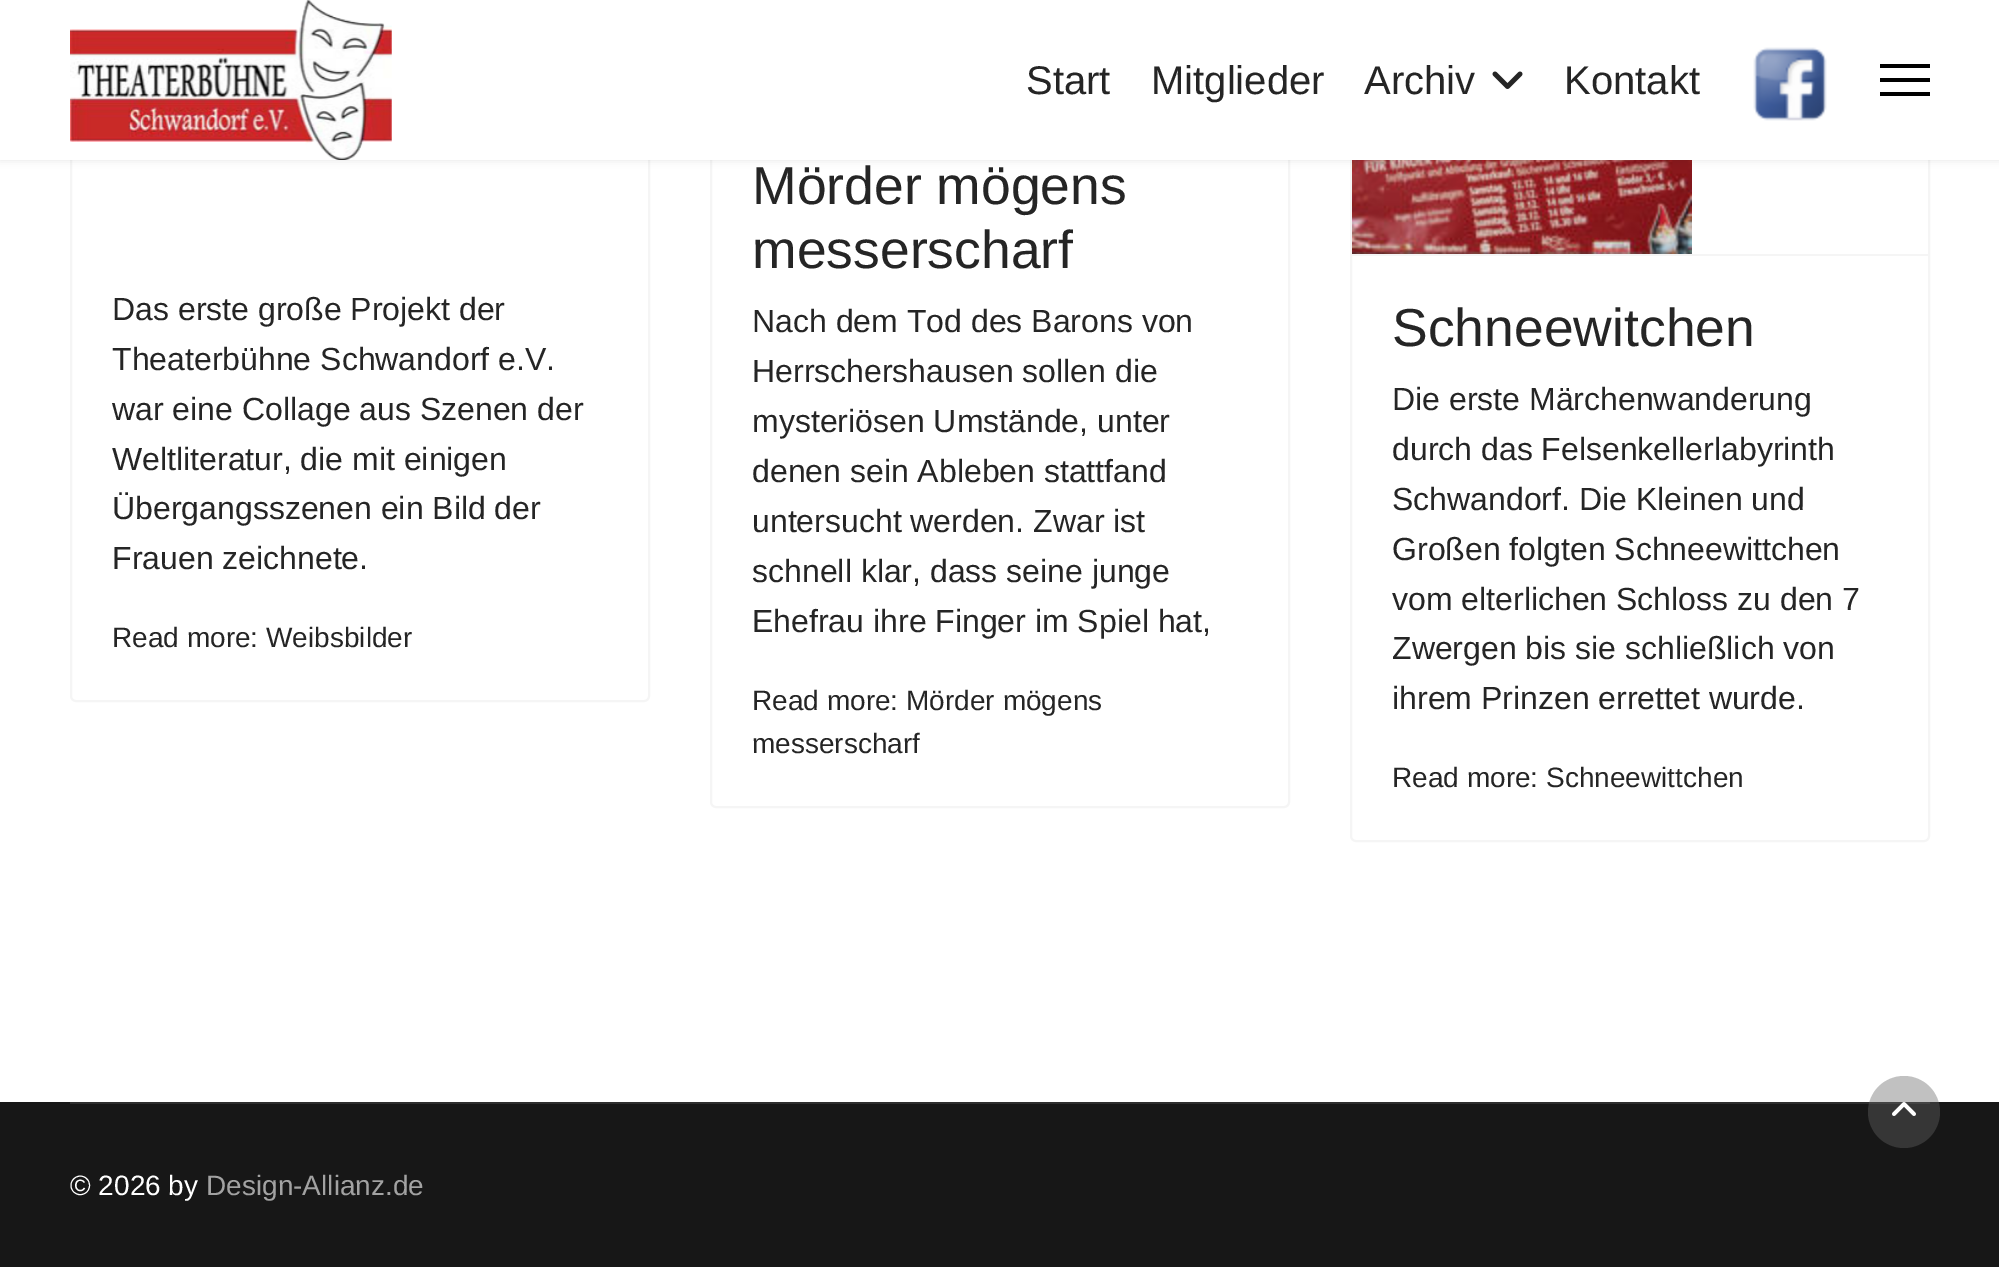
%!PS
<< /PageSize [1999 1267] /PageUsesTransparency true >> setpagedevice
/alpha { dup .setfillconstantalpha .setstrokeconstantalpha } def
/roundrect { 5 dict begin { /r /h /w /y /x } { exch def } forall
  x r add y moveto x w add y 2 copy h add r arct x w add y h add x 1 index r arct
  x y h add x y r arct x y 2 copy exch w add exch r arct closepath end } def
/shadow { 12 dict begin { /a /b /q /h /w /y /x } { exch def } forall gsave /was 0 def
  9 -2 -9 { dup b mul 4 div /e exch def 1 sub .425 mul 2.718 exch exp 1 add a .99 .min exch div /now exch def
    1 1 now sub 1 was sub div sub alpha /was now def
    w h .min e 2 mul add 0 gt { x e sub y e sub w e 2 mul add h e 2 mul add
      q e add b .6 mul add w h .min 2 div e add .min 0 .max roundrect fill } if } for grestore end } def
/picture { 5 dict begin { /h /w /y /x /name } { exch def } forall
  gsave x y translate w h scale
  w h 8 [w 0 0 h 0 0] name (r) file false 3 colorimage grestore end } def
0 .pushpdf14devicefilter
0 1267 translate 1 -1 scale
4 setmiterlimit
1 setgray
0 0 1999 1267 rectfill
0.961 setgray
2 setlinewidth
71 -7 578 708 5 roundrect stroke
711 -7 578 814 5 roundrect stroke
1351 -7 578 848 5 roundrect stroke
(img4.rgb) 1352 160 340 94 picture
0 setgray
0 0 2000 160 0 4 0.1 shadow
1 setgray
0 0 1999 160 rectfill
(img1.rgb) 70 0 322 160 picture
/LiberationSans-Regular [40 0 0 -40 0 0] selectfont
0.145 setgray
1026 94 moveto (Start) show
1151 94 moveto (Mitglieder) show
1364 94 moveto (Archiv) show
(img2.rgb) 1492 71 31 18 picture
1564 94 moveto (Kontakt) show
(img3.rgb) 1753 47 74 74 picture
0 setgray
1880 64 50 4 rectfill
1880 78 50 4 rectfill
1880 92 50 4 rectfill
/LiberationSans-Regular [32 0 0 -32 0 0] selectfont
0.145 setgray
112 320 moveto (Das erste große Projekt der) show
112 370 moveto (Theaterbühne Schwandorf e.V.) show
112 420 moveto (war eine Collage aus Szenen der) show
112 470 moveto (Weltliteratur, die mit einigen) show
112 519 moveto (Übergangsszenen ein Bild der) show
112 569 moveto (Frauen zeichnete.) show
/LiberationSans-Regular [28 0 0 -28 0 0] selectfont
112 647 moveto (Read more: Weibsbilder) show
/LiberationSans-Regular [53.5 0 0 -53.5 0 0] selectfont
752 204 moveto (Mörder mögens) show
752 268 moveto (messerscharf) show
/LiberationSans-Regular [32 0 0 -32 0 0] selectfont
752 332 moveto (Nach dem Tod des Barons von) show
752 382 moveto (Herrschershausen sollen die) show
752 432 moveto (mysteriösen Umstände, unter) show
752 482 moveto (denen sein Ableben stattfand) show
752 532 moveto (untersucht werden. Zwar ist) show
752 582 moveto (schnell klar, dass seine junge) show
752 632 moveto (Ehefrau ihre Finger im Spiel hat,) show
/LiberationSans-Regular [28 0 0 -28 0 0] selectfont
752 710 moveto (Read more: Mörder mögens) show
752 753 moveto (messerscharf) show
0.961 setgray
1352 254 576 2 rectfill
/LiberationSans-Regular [53.5 0 0 -53.5 0 0] selectfont
0.145 setgray
1392 346 moveto (Schneewitchen) show
/LiberationSans-Regular [32 0 0 -32 0 0] selectfont
1392 410 moveto (Die erste Märchenwanderung) show
1392 460 moveto (durch das Felsenkellerlabyrinth) show
1392 510 moveto (Schwandorf. Die Kleinen und) show
1392 560 moveto (Großen folgten Schneewittchen) show
1392 610 moveto (vom elterlichen Schloss zu den 7) show
1392 659 moveto (Zwergen bis sie schließlich von) show
1392 709 moveto (ihrem Prinzen errettet wurde.) show
/LiberationSans-Regular [28 0 0 -28 0 0] selectfont
1392 787 moveto (Read more: Schneewittchen) show
0.09 setgray
0 1102 1999 165 rectfill
0.18 setgray
70 1102 1860 2 rectfill
1 setgray
70 1195 moveto (© 2026 by) show
0.635 setgray
206 1195 moveto (Design-Allianz.de) show
0.4 alpha
0.392 setgray
newpath 1904 1112 36 0 360 arc closepath fill
1 alpha
(img5.rgb) 1892 1102 24 14 picture
.poppdf14devicefilter showpage
